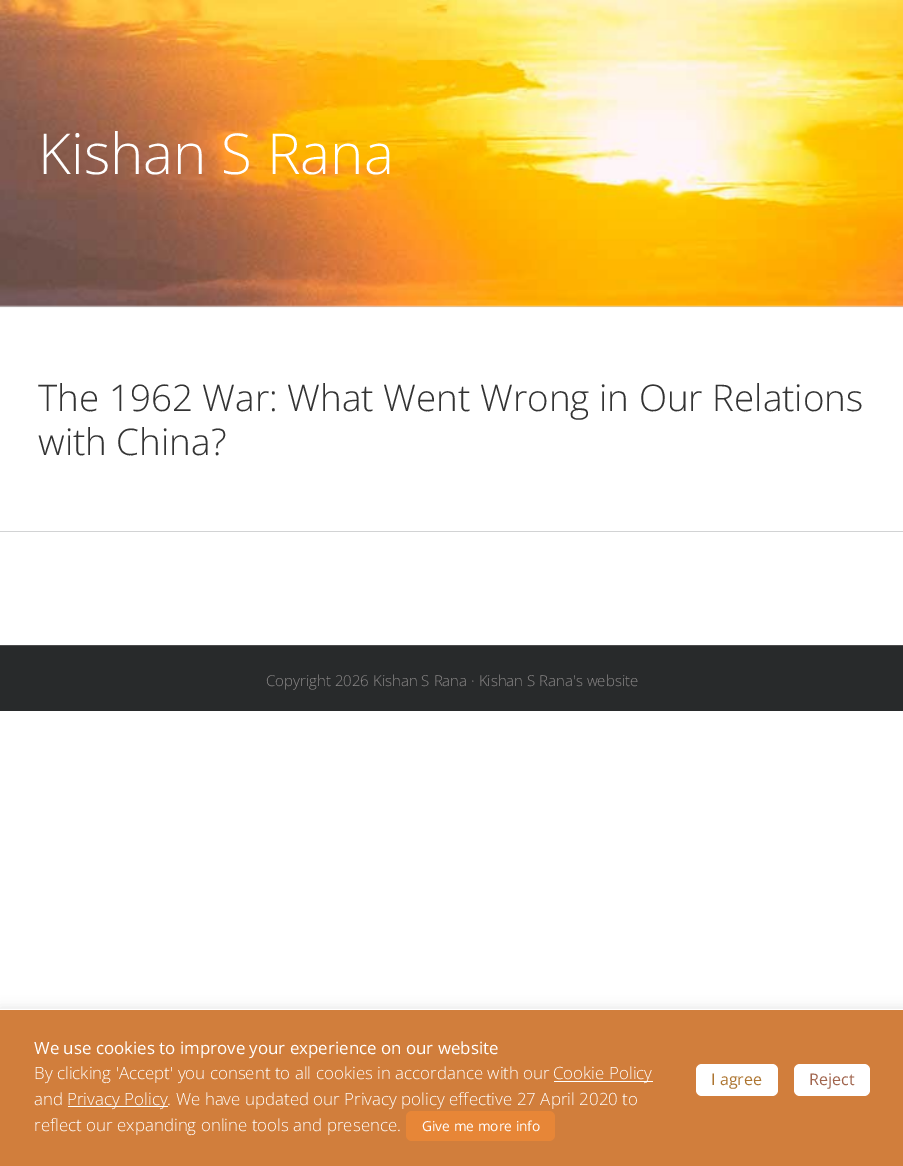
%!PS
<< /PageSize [903 1166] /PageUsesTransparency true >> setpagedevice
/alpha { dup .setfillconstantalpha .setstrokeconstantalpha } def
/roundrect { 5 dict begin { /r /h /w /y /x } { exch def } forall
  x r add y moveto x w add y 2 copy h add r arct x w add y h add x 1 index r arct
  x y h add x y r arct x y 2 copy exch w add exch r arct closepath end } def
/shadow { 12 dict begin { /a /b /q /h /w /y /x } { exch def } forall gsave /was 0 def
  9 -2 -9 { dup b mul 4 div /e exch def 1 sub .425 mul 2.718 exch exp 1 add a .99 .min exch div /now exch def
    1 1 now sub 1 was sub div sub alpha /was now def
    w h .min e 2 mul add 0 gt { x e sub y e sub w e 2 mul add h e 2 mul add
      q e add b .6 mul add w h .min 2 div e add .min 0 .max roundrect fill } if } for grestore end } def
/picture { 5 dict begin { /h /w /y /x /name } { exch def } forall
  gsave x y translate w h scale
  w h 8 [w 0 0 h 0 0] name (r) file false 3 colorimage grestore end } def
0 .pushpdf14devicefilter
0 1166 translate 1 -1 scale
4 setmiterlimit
1 setgray
0 0 903 1166 rectfill
0.824 0.827 0.831 setrgbcolor
0 306 903 1 rectfill
(img1.rgb) 0 0 903 308 picture
/OpenSans-Light [56.5 0 0 -56.5 0 0] selectfont
1 setgray
38 174 moveto (Kishan S Rana) show
0.824 0.827 0.831 setrgbcolor
0 531 903 1 rectfill
/OpenSans-Light [36.8 0 0 -36.8 0 0] selectfont
0.2 setgray
38 411 moveto (The 1962 War: What Went Wrong in Our Relations) show
38 455 moveto (with China?) show
0.157 0.165 0.169 setrgbcolor
0 646 903 65 rectfill
0.294 0.298 0.302 setrgbcolor
0 645 903 1 rectfill
/OpenSans-Light [15 0 0 -15 0 0] selectfont
0.549 0.537 0.537 setrgbcolor
266 686 moveto (Copyright 2026 Kishan S Rana · Kishan S Rana's website) show
0.675 0.671 0.671 setrgbcolor
0 1008 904 157 0 6 0.3 shadow
0.82 0.494 0.235 setrgbcolor
0 1010 903 156 rectfill
1 setgray
0 1009 903 1 rectfill
/OpenSans-Regular [16.9 0 0 -16.9 0 0] selectfont
34 1054 moveto (We use cookies to improve your experience on our website) show
/OpenSans-Light [16.9 0 0 -16.9 0 0] selectfont
34 1079 moveto (By clicking 'Accept' you consent to all cookies in accordance with our) show
554 1081 99 1 rectfill
553 1079 moveto (Cookie Policy) show
34 1105 moveto (and) show
68 1106 100 1 rectfill
67 1105 moveto (Privacy Policy. We have updated our Privacy policy effective 27 April 2020 to) show
34 1131 moveto (reflect our expanding online tools and presence.) show
0.906 0.525 0.216 setrgbcolor
406 1111 149 30 6 roundrect fill
/OpenSans-Regular [13.75 0 0 -13.75 0 0] selectfont
1 setgray
422 1131 moveto (Give me more info) show
696 1064 82 32 6 roundrect fill
/OpenSans-Regular [16 0 0 -16 0 0] selectfont
0.678 0.459 0.188 setrgbcolor
711 1085 moveto (I agree) show
1 setgray
794 1064 76 32 6 roundrect fill
0.627 0.392 0.298 setrgbcolor
809 1085 moveto (Reject) show
.poppdf14devicefilter showpage
